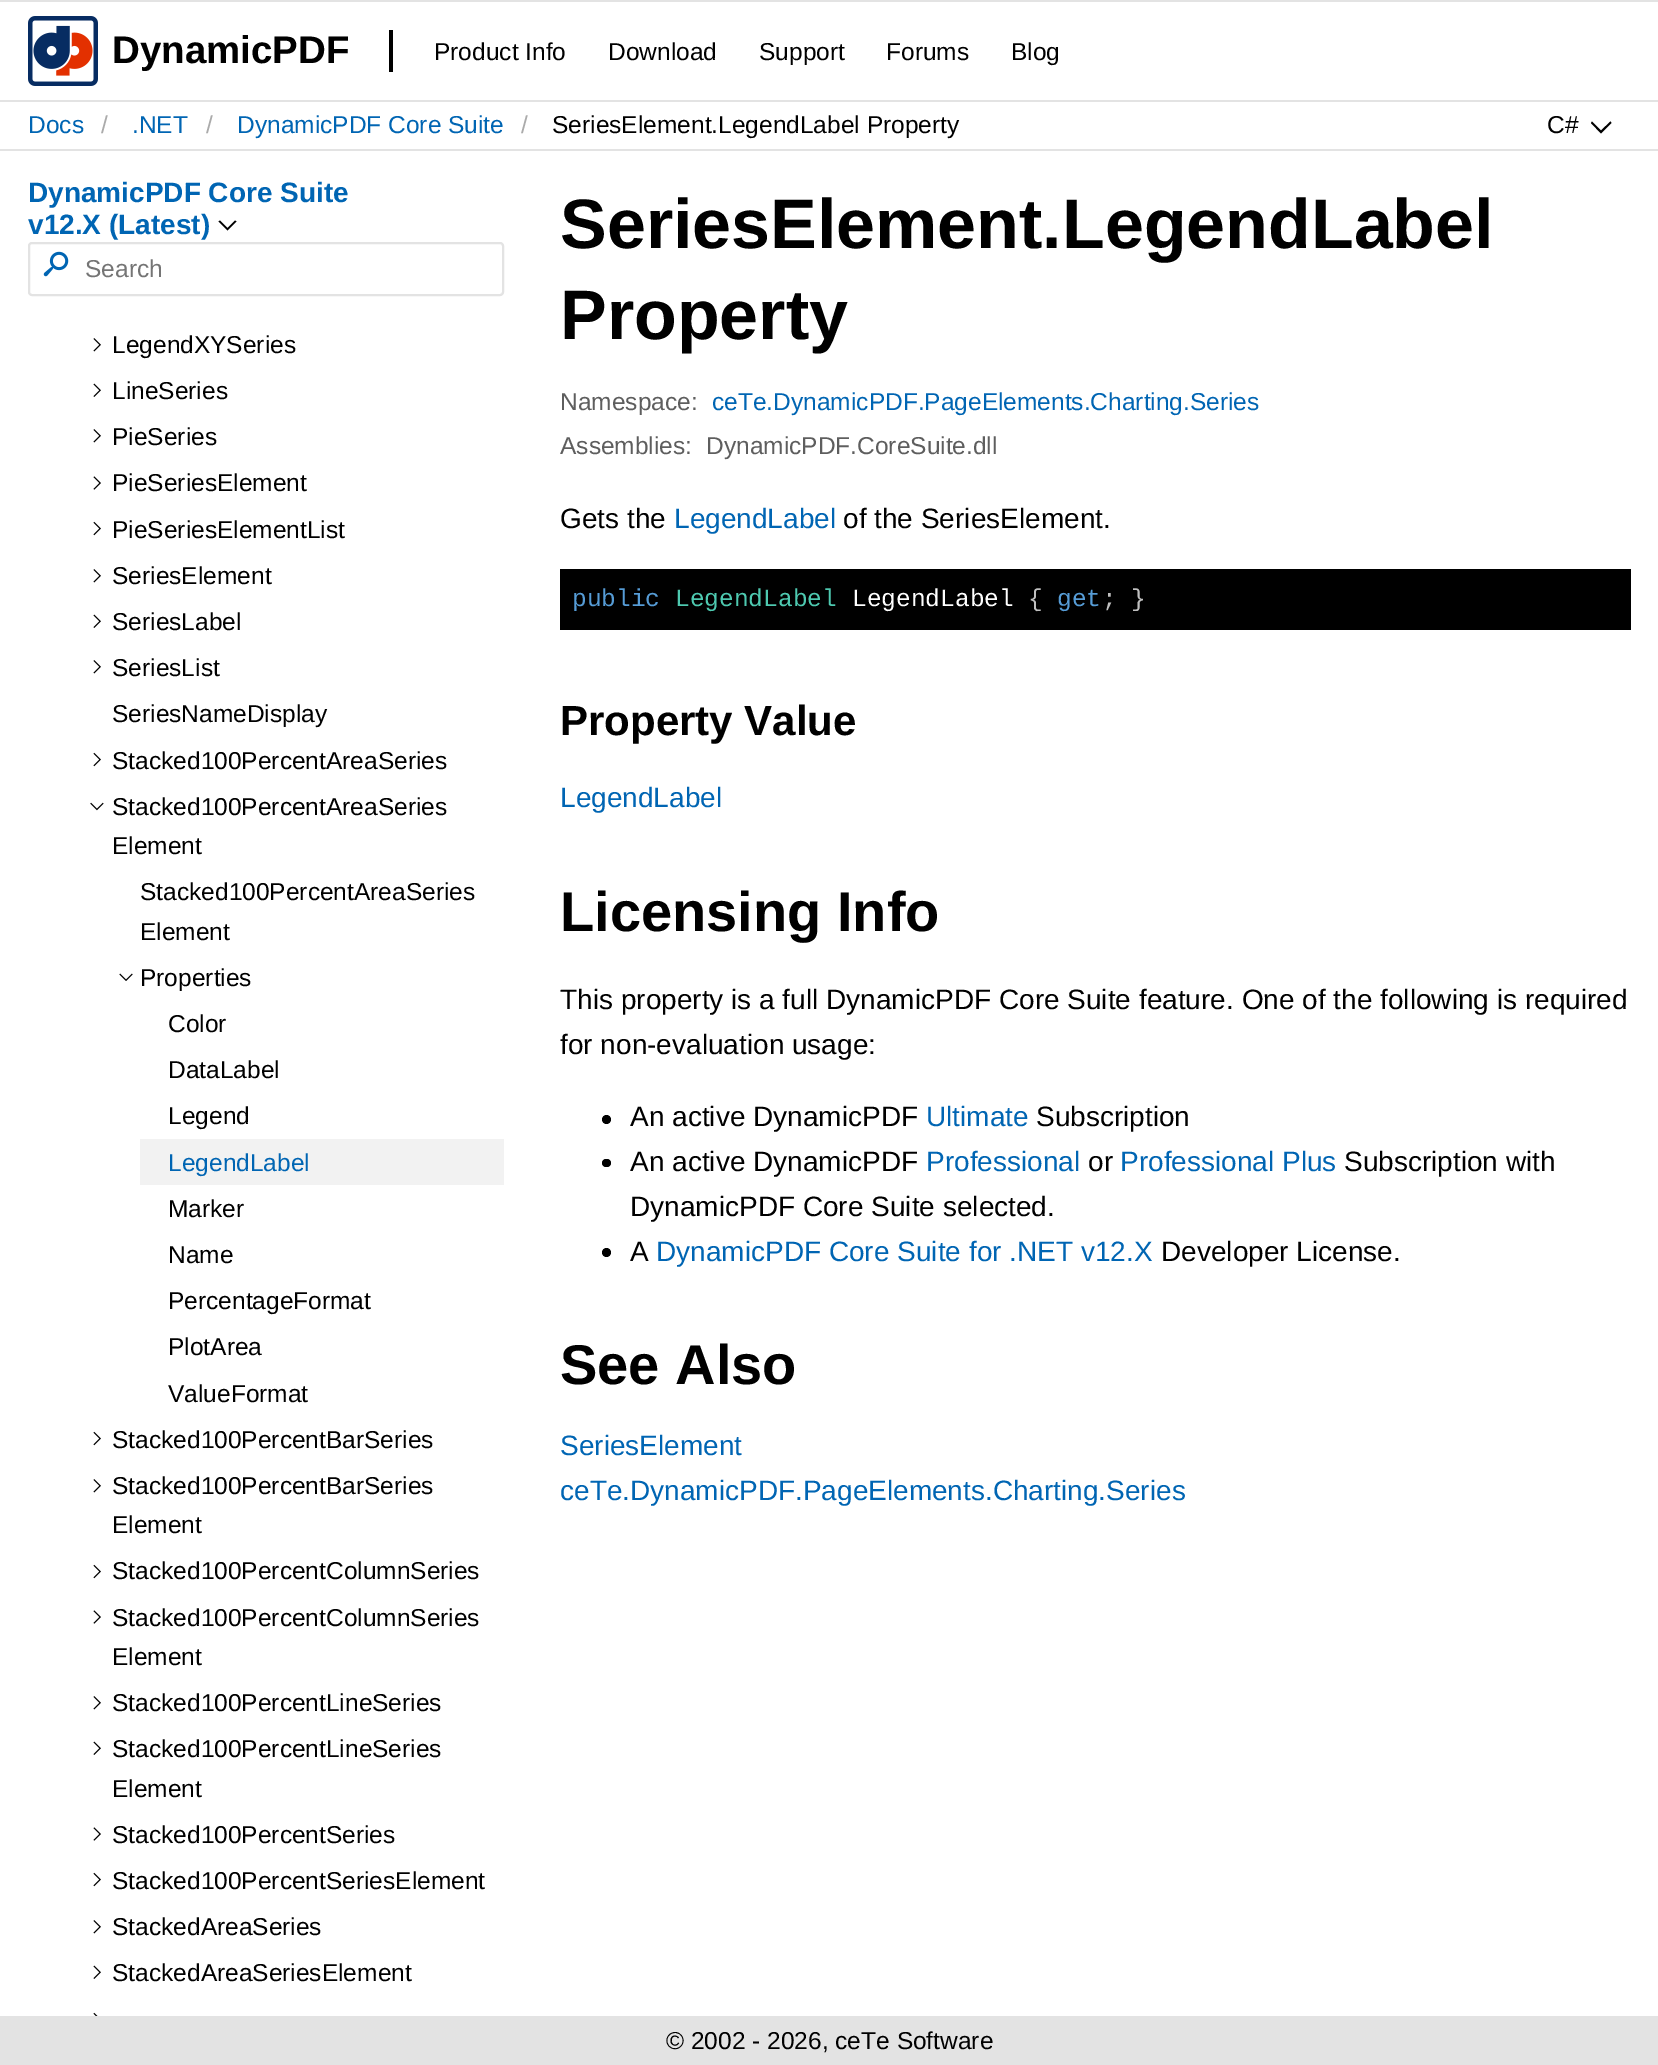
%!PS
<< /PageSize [1658 2065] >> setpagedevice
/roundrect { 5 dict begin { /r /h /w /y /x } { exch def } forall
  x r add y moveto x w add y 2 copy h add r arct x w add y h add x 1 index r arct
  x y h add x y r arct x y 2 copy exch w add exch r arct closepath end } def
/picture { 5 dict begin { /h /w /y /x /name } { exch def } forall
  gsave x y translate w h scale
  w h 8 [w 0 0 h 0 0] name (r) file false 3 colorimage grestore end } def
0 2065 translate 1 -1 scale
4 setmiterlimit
1 setgray
0 0 1658 2065 rectfill
0.89 setgray
0 149 1658 2 rectfill
0 0 1658 2 rectfill
(img1.rgb) 28 16 70 70 picture
/LiberationSans-Bold [38.5 0 0 -38.5 0 0] selectfont
0 setgray
112 63 moveto (DynamicPDF) show
389 30 4 42 rectfill
/LiberationSans-Regular [24.5 0 0 -24.5 0 0] selectfont
434 60 moveto (Product Info) show
608 60 moveto (Download) show
759 60 moveto (Support) show
886 60 moveto (Forums) show
1011 60 moveto (Blog) show
0.89 setgray
0 100 1658 2 rectfill
0 0.396 0.702 setrgbcolor
28 133 moveto (Docs) show
0.671 setgray
101 133 moveto (/) show
0 0.396 0.702 setrgbcolor
132 133 moveto (.NET) show
0.671 setgray
206 133 moveto (/) show
0 0.396 0.702 setrgbcolor
237 133 moveto (DynamicPDF Core Suite) show
0.671 setgray
521 133 moveto (/) show
0 setgray
552 133 moveto (SeriesElement.LegendLabel Property) show
1547 133 moveto (C#) show
newpath 1611.5 123 moveto 1601 133.5 lineto 1591 123 lineto 1592 121.5 lineto 1601 130.5 lineto 1610.5 121.5 lineto closepath fill
/LiberationSans-Bold [28 0 0 -28 0 0] selectfont
0 0.396 0.702 setrgbcolor
28 202 moveto (DynamicPDF Core Suite) show
28 234 moveto (v12.X \(Latest\)) show
0 setgray
newpath 236.5 221.5 moveto 227.5 230.5 lineto 218.5 221.5 lineto 220 220.5 lineto 227.5 228 lineto 235 220.5 lineto closepath fill
0.89 setgray
2 setlinewidth
29 243 474 52 3 roundrect stroke
(img2.rgb) 43 251 26 26 picture
/LiberationSans-Regular [24.5 0 0 -24.5 0 0] selectfont
0.459 setgray
85 277 moveto (Search) show
(img3.rgb) 93 338 8 14 picture
0 setgray
112 353 moveto (LegendXYSeries) show
(img4.rgb) 93 383 8 14 picture
112 399 moveto (LineSeries) show
(img3.rgb) 93 429 8 14 picture
112 445 moveto (PieSeries) show
(img5.rgb) 93 476 8 14 picture
112 491 moveto (PieSeriesElement) show
(img6.rgb) 93 521 8 15 picture
112 538 moveto (PieSeriesElementList) show
(img3.rgb) 93 569 8 14 picture
112 584 moveto (SeriesElement) show
(img4.rgb) 93 614 8 14 picture
112 630 moveto (SeriesLabel) show
(img3.rgb) 93 660 8 14 picture
112 676 moveto (SeriesList) show
112 722 moveto (SeriesNameDisplay) show
(img6.rgb) 93 752 8 15 picture
112 769 moveto (Stacked100PercentAreaSeries) show
(img7.rgb) 90 802 14 9 picture
112 815 moveto (Stacked100PercentAreaSeries) show
112 854 moveto (Element) show
140 900 moveto (Stacked100PercentAreaSeries) show
140 940 moveto (Element) show
(img8.rgb) 119 973 14 8 picture
140 986 moveto (Properties) show
168 1032 moveto (Color) show
168 1078 moveto (DataLabel) show
168 1124 moveto (Legend) show
0.949 setgray
140 1139 364 46 rectfill
0 0.396 0.702 setrgbcolor
168 1171 moveto (LegendLabel) show
0 setgray
168 1217 moveto (Marker) show
168 1263 moveto (Name) show
168 1309 moveto (PercentageFormat) show
168 1355 moveto (PlotArea) show
168 1402 moveto (ValueFormat) show
(img6.rgb) 93 1431 8 15 picture
112 1448 moveto (Stacked100PercentBarSeries) show
(img3.rgb) 93 1479 8 14 picture
112 1494 moveto (Stacked100PercentBarSeries) show
112 1533 moveto (Element) show
(img6.rgb) 93 1564 8 15 picture
112 1579 moveto (Stacked100PercentColumnSeries) show
(img5.rgb) 93 1610 8 14 picture
112 1626 moveto (Stacked100PercentColumnSeries) show
112 1665 moveto (Element) show
(img3.rgb) 93 1696 8 14 picture
112 1711 moveto (Stacked100PercentLineSeries) show
(img4.rgb) 93 1741 8 14 picture
112 1757 moveto (Stacked100PercentLineSeries) show
112 1797 moveto (Element) show
(img5.rgb) 93 1827 8 14 picture
112 1843 moveto (Stacked100PercentSeries) show
(img6.rgb) 93 1872 8 15 picture
112 1889 moveto (Stacked100PercentSeriesElement) show
(img3.rgb) 93 1920 8 14 picture
112 1935 moveto (StackedAreaSeries) show
(img4.rgb) 93 1965 8 14 picture
112 1981 moveto (StackedAreaSeriesElement) show
(img9.rgb) 93 2012 5 4 picture
/LiberationSans-Bold [70 0 0 -70 0 0] selectfont
560 248 moveto (SeriesElement.LegendLabel) show
560 339 moveto (Property) show
/LiberationSans-Regular [24.5 0 0 -24.5 0 0] selectfont
0.369 setgray
560 410 moveto (Namespace:) show
0 0.396 0.702 setrgbcolor
712 410 moveto (ceTe.DynamicPDF.PageElements.Charting.Series) show
0.369 setgray
560 454 moveto (Assemblies:) show
706 454 moveto (DynamicPDF.CoreSuite.dll) show
/LiberationSans-Regular [28 0 0 -28 0 0] selectfont
0 setgray
560 528 moveto (Gets the) show
0 0.396 0.702 setrgbcolor
674 528 moveto (LegendLabel) show
0 setgray
843 528 moveto (of the SeriesElement.) show
560 569 1071 61 rectfill
/LiberationMono-Regular [24.5 0 0 -24.5 0 0] selectfont
0.337 0.612 0.839 setrgbcolor
572 606 moveto (public) show
0.306 0.788 0.69 setrgbcolor
675 606 moveto (LegendLabel) show
1 setgray
852 606 moveto (LegendLabel) show
0.753 setgray
1028 606 moveto ({) show
0.337 0.612 0.839 setrgbcolor
1057 606 moveto (get) show
0.753 setgray
1102 606 moveto (; }) show
/LiberationSans-Bold [42 0 0 -42 0 0] selectfont
0 setgray
560 735 moveto (Property Value) show
/LiberationSans-Regular [28 0 0 -28 0 0] selectfont
0 0.396 0.702 setrgbcolor
560 807 moveto (LegendLabel) show
/LiberationSans-Bold [56 0 0 -56 0 0] selectfont
0 setgray
560 931 moveto (Licensing Info) show
/LiberationSans-Regular [28 0 0 -28 0 0] selectfont
560 1009 moveto (This property is a full DynamicPDF Core Suite feature. One of the following is required) show
560 1054 moveto (for non-evaluation usage:) show
newpath 606.5 1119.5 4.5 0 360 arc closepath fill
630 1126 moveto (An active DynamicPDF) show
0 0.396 0.702 setrgbcolor
926 1126 moveto (Ultimate) show
0 setgray
1036 1126 moveto (Subscription) show
602 1159 9 8 4 roundrect fill
630 1171 moveto (An active DynamicPDF) show
0 0.396 0.702 setrgbcolor
926 1171 moveto (Professional) show
0 setgray
1088 1171 moveto (or) show
0 0.396 0.702 setrgbcolor
1120 1171 moveto (Professional Plus) show
0 setgray
1344 1171 moveto (Subscription with) show
630 1216 moveto (DynamicPDF Core Suite selected.) show
newpath 606.5 1252.5 4.5 0 360 arc closepath fill
630 1261 moveto (A) show
0 0.396 0.702 setrgbcolor
656 1261 moveto (DynamicPDF Core Suite for .NET v12.X) show
0 setgray
1161 1261 moveto (Developer License.) show
/LiberationSans-Bold [56 0 0 -56 0 0] selectfont
560 1384 moveto (See Also) show
/LiberationSans-Regular [28 0 0 -28 0 0] selectfont
0 0.396 0.702 setrgbcolor
560 1455 moveto (SeriesElement) show
560 1500 moveto (ceTe.DynamicPDF.PageElements.Charting.Series) show
0.89 setgray
0 2016 1658 49 rectfill
/LiberationSans-Regular [24.5 0 0 -24.5 0 0] selectfont
0 setgray
666 2049 moveto (© 2002 - 2026, ceTe Software) show
showpage
